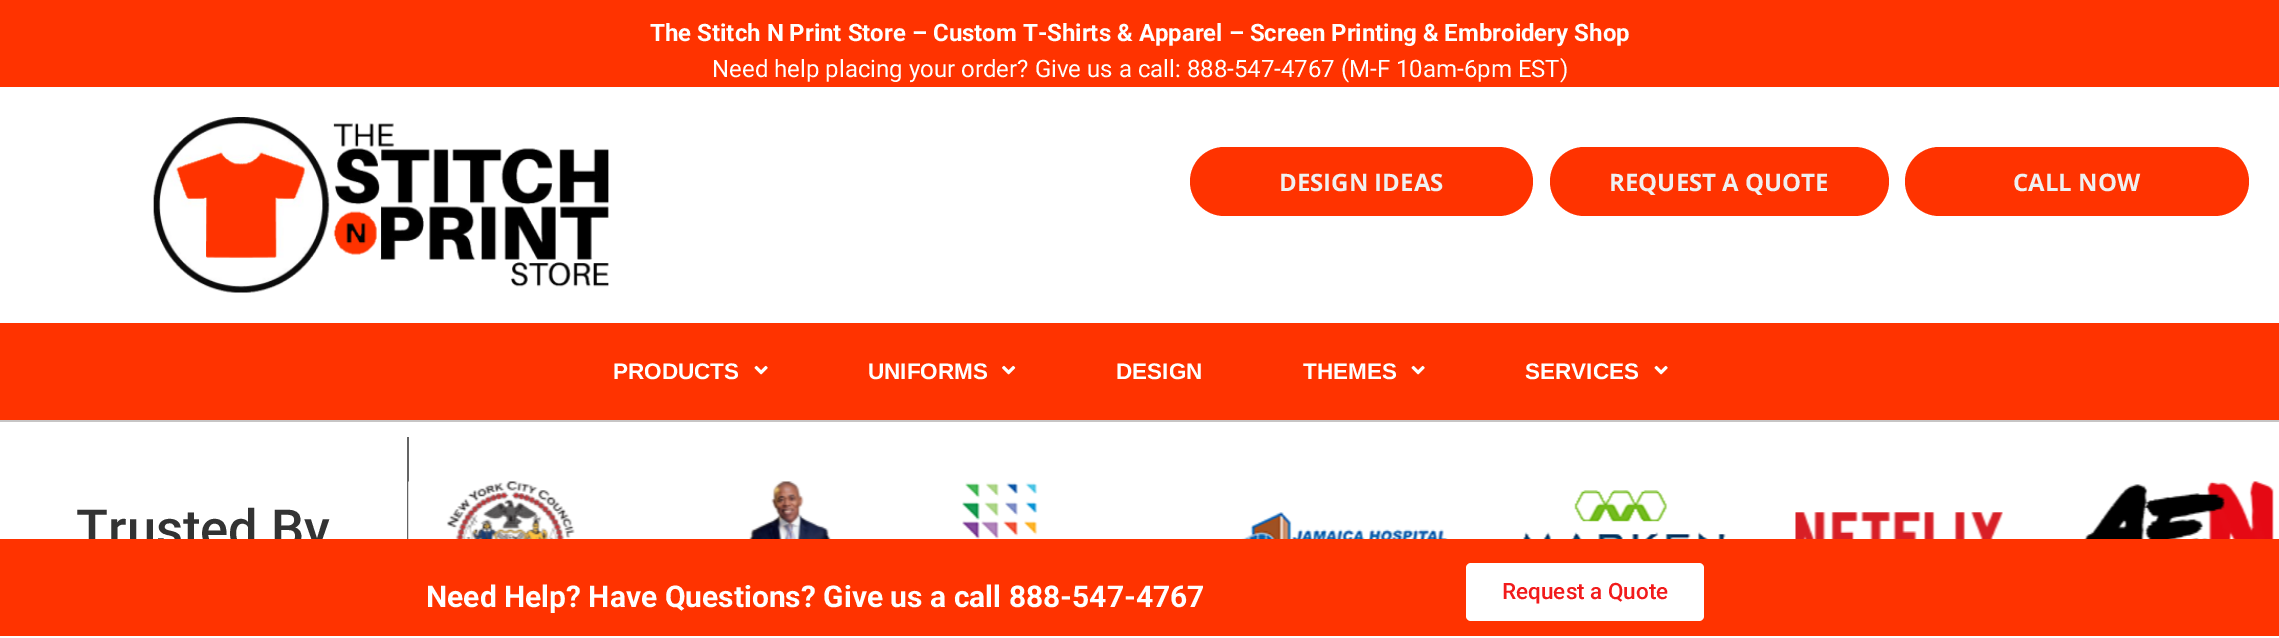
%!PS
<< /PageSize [2279 638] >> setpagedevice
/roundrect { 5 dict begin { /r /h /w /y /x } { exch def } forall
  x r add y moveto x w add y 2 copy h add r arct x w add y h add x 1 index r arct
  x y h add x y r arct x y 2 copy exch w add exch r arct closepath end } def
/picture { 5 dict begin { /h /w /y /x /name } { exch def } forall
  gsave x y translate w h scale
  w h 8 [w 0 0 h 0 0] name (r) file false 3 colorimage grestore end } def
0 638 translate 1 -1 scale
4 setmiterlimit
1 setgray
0 0 2279 638 rectfill
1 0.2 0 setrgbcolor
0 0 2279 87 rectfill
/Roboto-Bold [24 0 0 -24 0 0] selectfont
1 setgray
650 41 moveto (The Stitch N Print Store – Custom T-Shirts & Apparel – Screen Printing & Embroidery Shop) show
/Roboto-Regular [24 0 0 -24 0 0] selectfont
712 77 moveto (Need help placing your order? Give us a call: 888-547-4767 \(M-F 10am-6pm EST\)) show
(img1.rgb) 153 117 456 176 picture
1 0.2 0 setrgbcolor
1190 147 343 69 34.5 roundrect fill
/OpenSans-Bold [24 0 0 -24 0 0] selectfont
0.941 setgray
1279 191 moveto (DESIGN IDEAS) show
1 0.2 0 setrgbcolor
1550 147 339 69 34.5 roundrect fill
0.941 setgray
1609 191 moveto (REQUEST A QUOTE) show
1 0.2 0 setrgbcolor
1905 147 344 69 34.5 roundrect fill
0.941 setgray
2013 191 moveto (CALL NOW) show
1 0.2 0 setrgbcolor
0 323 2279 97 rectfill
/LiberationSans-Bold [22.5 0 0 -22.5 0 0] selectfont
1 setgray
613 379 moveto (PRODUCTS) show
(img2.rgb) 754 365 14 10 picture
868 379 moveto (UNIFORMS) show
(img3.rgb) 1002 365 14 10 picture
1116 379 moveto (DESIGN) show
1303 379 moveto (THEMES) show
(img2.rgb) 1411 365 14 10 picture
1525 379 moveto (SERVICES) show
(img2.rgb) 1654 365 14 10 picture
0.78 0.773 0.773 setrgbcolor
0 420 2279 2 rectfill
/Roboto-Medium [52.5 0 0 -52.5 0 0] selectfont
0.2 setgray
76 547 moveto (Trusted By) show
0.392 setgray
407 437 2 102 rectfill
(img4.rgb) 408 481 167 58 picture
(img5.rgb) 737 481 102 58 picture
(img6.rgb) 962 482 209 57 picture
(img7.rgb) 1240 512 208 27 picture
(img8.rgb) 1517 490 209 49 picture
(img9.rgb) 1795 512 208 27 picture
(img10.rgb) 2078 481 196 58 picture
1 0.2 0 setrgbcolor
0 539 2279 97 rectfill
/Roboto-Bold [30 0 0 -30 0 0] selectfont
1 setgray
426 607 moveto (Need Help? Have Questions? Give us a call 888-547-4767) show
1466 563 238 58 5 roundrect fill
/Roboto-Medium [22.5 0 0 -22.5 0 0] selectfont
0.949 0.106 0.106 setrgbcolor
1502 599 moveto (Request a Quote) show
showpage
